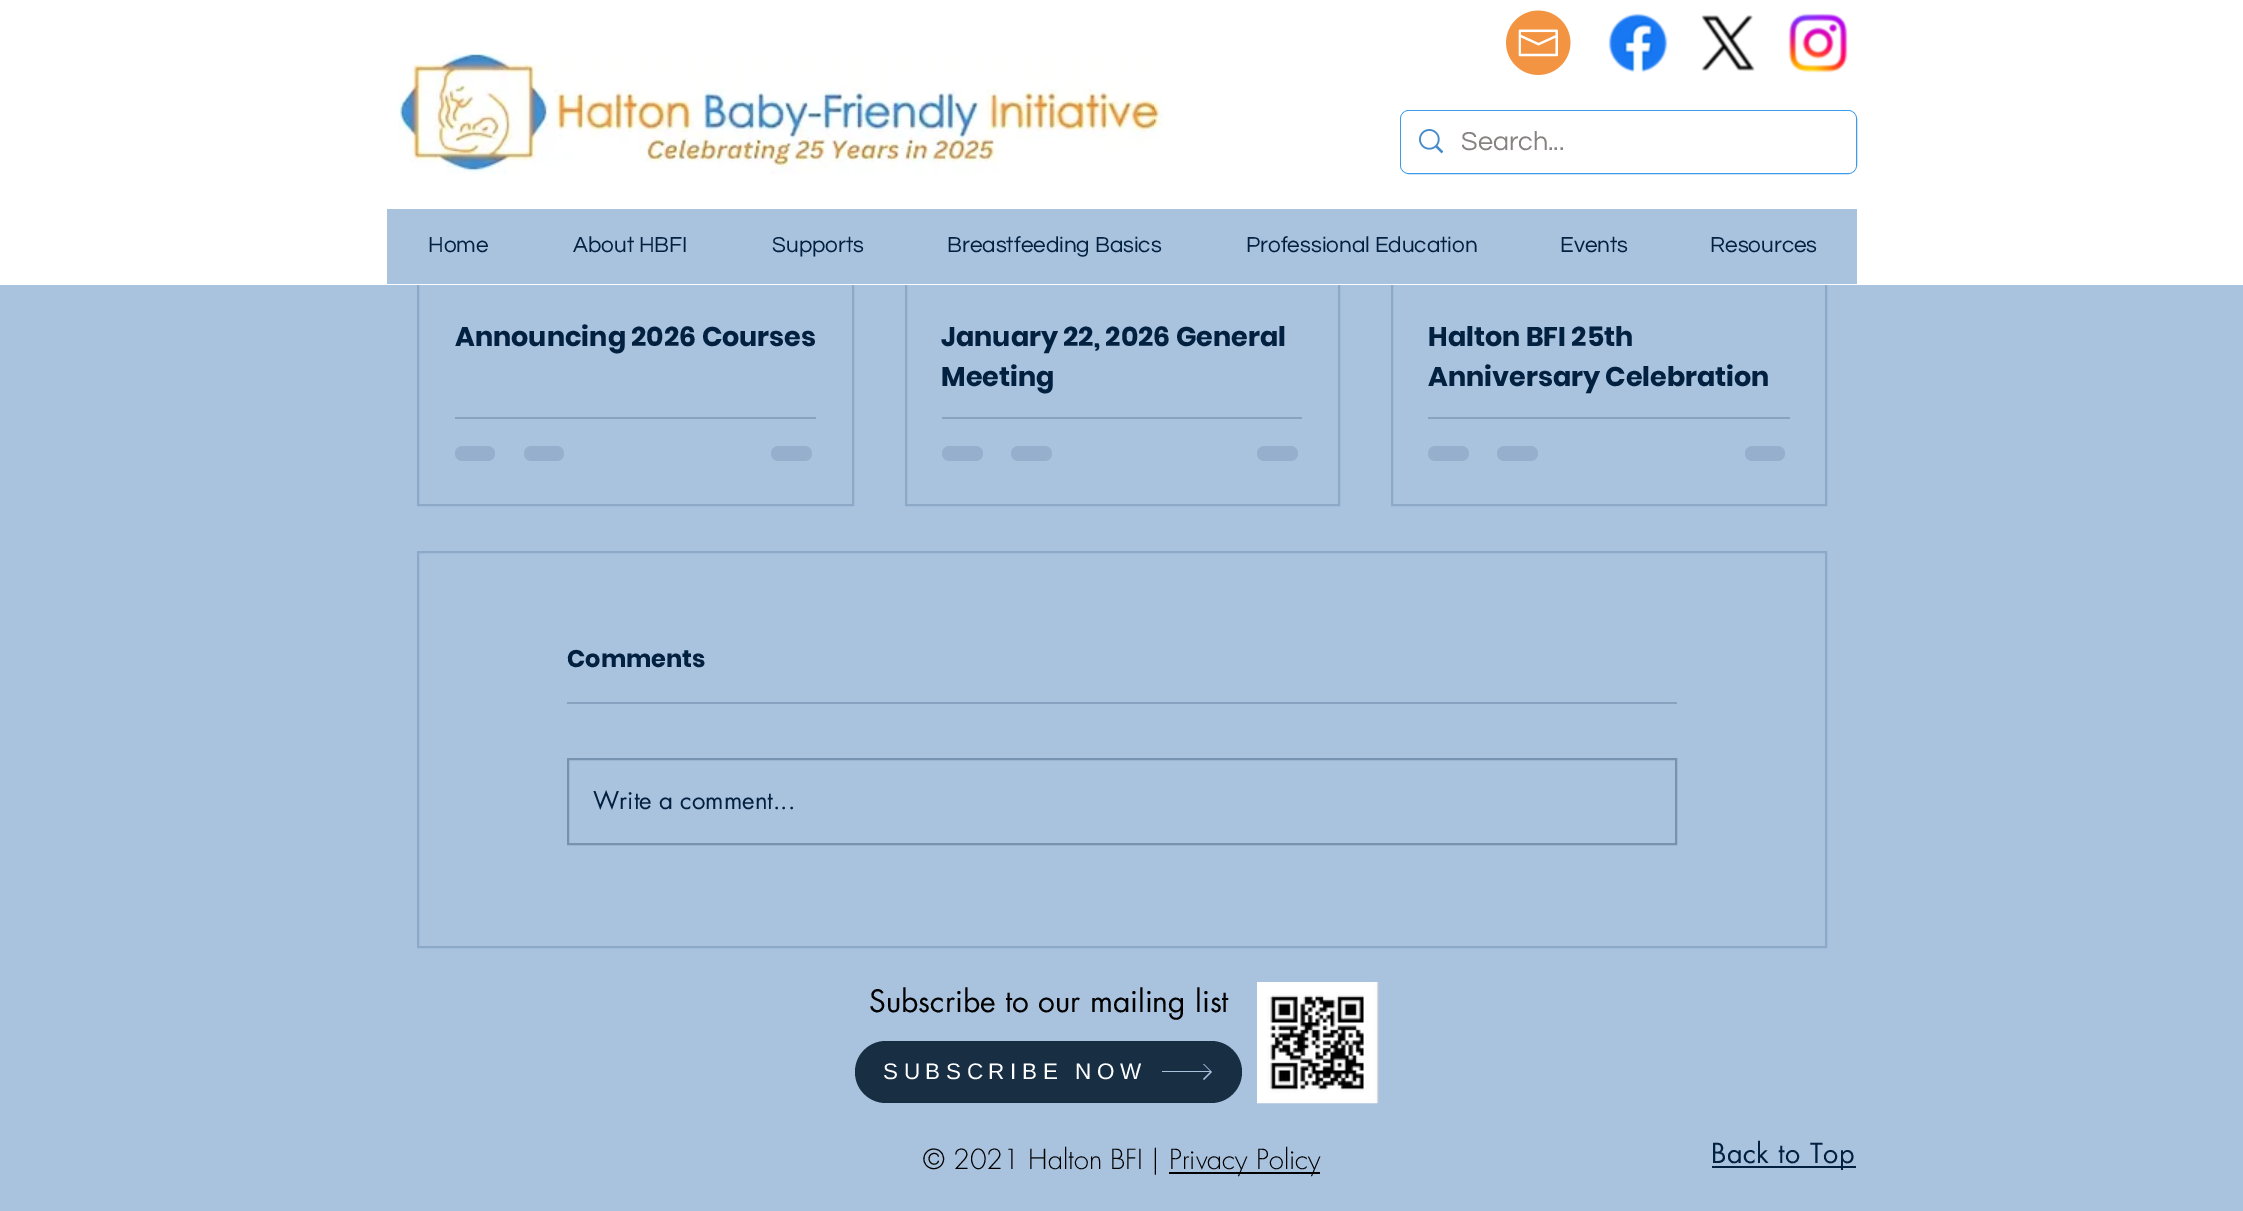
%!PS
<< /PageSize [2243 1211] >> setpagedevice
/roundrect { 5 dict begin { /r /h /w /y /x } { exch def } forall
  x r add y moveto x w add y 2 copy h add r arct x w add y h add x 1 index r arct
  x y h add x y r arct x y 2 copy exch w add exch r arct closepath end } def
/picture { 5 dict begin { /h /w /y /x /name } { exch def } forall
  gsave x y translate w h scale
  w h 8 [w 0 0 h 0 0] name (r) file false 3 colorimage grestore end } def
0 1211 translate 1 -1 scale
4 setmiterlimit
0.663 0.765 0.875 setrgbcolor
0 0 2243 1211 rectfill
0.549 0.663 0.784 setrgbcolor
2 setlinewidth
418 36 435 469 rectstroke
906 36 433 469 rectstroke
1392 36 434 469 rectstroke
1 setgray
0 0 2243 285 rectfill
(img1.rgb) 1506 10 65 65 picture
(img2.rgb) 1608 13 60 60 picture
(img3.rgb) 1701 15 54 56 picture
(img4.rgb) 1788 13 60 60 picture
(img5.rgb) 398 54 767 120 picture
0.239 0.608 0.914 setrgbcolor
1401 111 455 62 8 roundrect stroke
1 setgray
1401 111 455 62 8 roundrect fill
(img6.rgb) 1419 129 24 25 picture
/Questrial-Regular [27 0 0 -27 0 0] selectfont
0.525 0.51 0.506 setrgbcolor
1461 150 moveto (Search...) show
0.663 0.765 0.875 setrgbcolor
387 209 1470 75 rectfill
/Questrial-Regular [22.5 0 0 -22.5 0 0] selectfont
0.008 0.125 0.251 setrgbcolor
428 252 moveto (Home) show
573 252 moveto (About HBFI) show
772 252 moveto (Supports) show
947 252 moveto (Breastfeeding Basics) show
1246 252 moveto (Professional Education) show
1560 252 moveto (Events) show
1710 252 moveto (Resources) show
/Poppins-Bold [27 0 0 -27 0 0] selectfont
455 346 moveto (Announcing 2026 Courses) show
0.533 0.635 0.749 setrgbcolor
455 417 361 2 rectfill
0.584 0.686 0.8 setrgbcolor
455 446 40 15 7.5 roundrect fill
524 446 40 15 7.5 roundrect fill
771 446 41 15 7.5 roundrect fill
0.008 0.125 0.251 setrgbcolor
941 346 moveto (January 22, 2026 General) show
941 386 moveto (Meeting) show
0.533 0.635 0.749 setrgbcolor
942 417 360 2 rectfill
0.584 0.686 0.8 setrgbcolor
942 446 41 15 7.5 roundrect fill
1011 446 41 15 7.5 roundrect fill
1257 446 41 15 7.5 roundrect fill
0.008 0.125 0.251 setrgbcolor
1428 346 moveto (Halton BFI 25th) show
1428 386 moveto (Anniversary Celebration) show
0.533 0.635 0.749 setrgbcolor
1428 417 362 2 rectfill
0.584 0.686 0.8 setrgbcolor
1428 446 41 15 7.5 roundrect fill
1497 446 41 15 7.5 roundrect fill
1745 446 40 15 7.5 roundrect fill
0.549 0.663 0.784 setrgbcolor
418 552 1408 395 rectstroke
/Poppins-Bold [24 0 0 -24 0 0] selectfont
0.008 0.125 0.251 setrgbcolor
567 667 moveto (Comments) show
0.533 0.635 0.749 setrgbcolor
567 702 1110 2 rectfill
0.467 0.573 0.686 setrgbcolor
568 759 1108 85 rectstroke
/futura-Regular [24 0 0 -24 0 0] selectfont
0.008 0.125 0.251 setrgbcolor
593 809 moveto (Write a comment...) show
/futura-Regular [30 0 0 -30 0 0] selectfont
0 setgray
869 1012 moveto (Subscribe to our mailing list) show
(img7.rgb) 1257 982 122 122 picture
0.09 0.18 0.263 setrgbcolor
855 1041 387 62 31 roundrect fill
/LiberationSans-Regular [22.5 0 0 -22.5 0 0] selectfont
1 setgray
883 1079 moveto 5.6 0 (SUBSCRIBE NOW) ashow
0.663 0.765 0.875 setrgbcolor
newpath 1204 1064 moveto 1203 1064 lineto 1210 1071 lineto 1162 1071 lineto 1162 1072 lineto 1210 1072 lineto 1203 1079 lineto 1204 1080 lineto 1212 1072 lineto closepath fill
/futura-Light [27 0 0 -27 0 0] selectfont
0 setgray
923 1169 moveto (© 2021 Halton BFI |) show
1169 1172 151 2 rectfill
1169 1169 moveto (Privacy Policy) show
0.008 0.125 0.251 setrgbcolor
1712 1166 144 2 rectfill
/futura-Regular [27 0 0 -27 0 0] selectfont
1711 1163 moveto 0.5 0 (Back to Top) ashow
showpage
